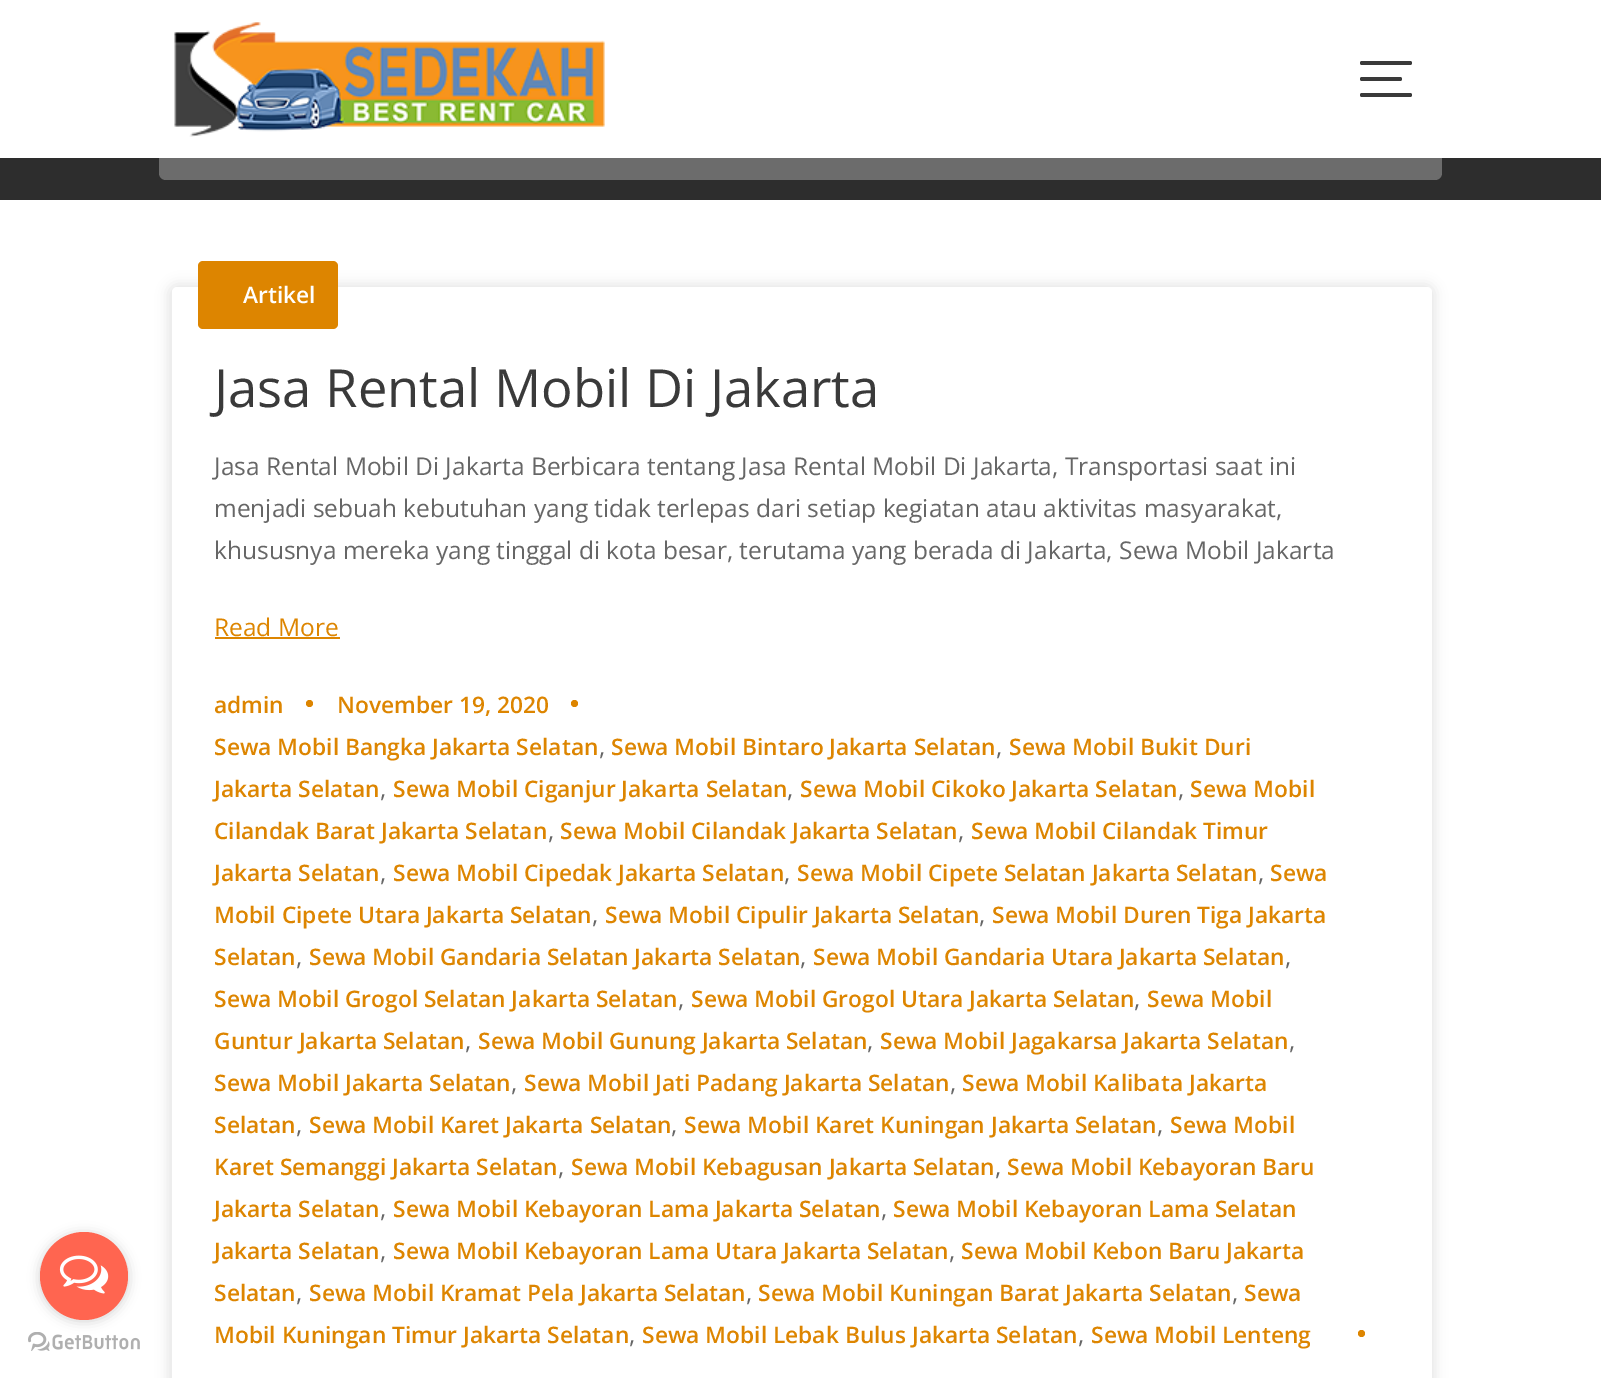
%!PS
<< /PageSize [1601 1378] /PageUsesTransparency true >> setpagedevice
/alpha { dup .setfillconstantalpha .setstrokeconstantalpha } def
/roundrect { 5 dict begin { /r /h /w /y /x } { exch def } forall
  x r add y moveto x w add y 2 copy h add r arct x w add y h add x 1 index r arct
  x y h add x y r arct x y 2 copy exch w add exch r arct closepath end } def
/shadow { 12 dict begin { /a /b /q /h /w /y /x } { exch def } forall gsave /was 0 def
  9 -2 -9 { dup b mul 4 div /e exch def 1 sub .425 mul 2.718 exch exp 1 add a .99 .min exch div /now exch def
    1 1 now sub 1 was sub div sub alpha /was now def
    w h .min e 2 mul add 0 gt { x e sub y e sub w e 2 mul add h e 2 mul add
      q e add b .6 mul add w h .min 2 div e add .min 0 .max roundrect fill } if } for grestore end } def
/picture { 5 dict begin { /h /w /y /x /name } { exch def } forall
  gsave x y translate w h scale
  w h 8 [w 0 0 h 0 0] name (r) file false 3 colorimage grestore end } def
0 .pushpdf14devicefilter
0 1378 translate 1 -1 scale
4 setmiterlimit
1 setgray
0 0 1601 1378 rectfill
(img2.rgb) 28 1332 112 19 picture
0.533 setgray
40 1234 88 87 43.5 6 0.4 shadow
1 0.396 0.314 setrgbcolor
newpath 84 1276 44 0 360 arc closepath fill
(img1.rgb) 59 1255 50 39 picture
(img3.rgb) 174 22 431 115 picture
0.227 setgray
1360 61 52 4 2 roundrect fill
1360 77 42 4 2 roundrect fill
1360 93 52 4 2 roundrect fill
0.176 setgray
0 158 1601 42 rectfill
0.3 alpha
1 setgray
newpath 159 152 moveto 159 173 lineto 159 177 162 180 166 180 curveto 1435 180 lineto 1439 180 1442 177 1442 173 curveto 1442 152 lineto 1440 154 1438 156 1435 156 curveto 166 156 lineto 163 156 161 154 159 152 curveto closepath fill
1 alpha
0 setgray
168 284 1267 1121 9 6 0.1 shadow
1 setgray
172 287 1260 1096 5 roundrect fill
0.867 0.522 0 setrgbcolor
198 261 140 68 5 roundrect fill
/OpenSans-SemiBold [22.75 0 0 -22.75 0 0] selectfont
1 setgray
243 303 moveto (Artikel) show
/OpenSans-Regular [52.5 0 0 -52.5 0 0] selectfont
0.227 setgray
214 407 moveto (Jasa Rental Mobil Di Jakarta) show
/OpenSans-Regular [24.5 0 0 -24.5 0 0] selectfont
0.4 setgray
214 475 moveto (Jasa Rental Mobil Di Jakarta Berbicara tentang Jasa Rental Mobil Di Jakarta, Transportasi saat ini) show
214 517 moveto (menjadi sebuah kebutuhan yang tidak terlepas dari setiap kegiatan atau aktivitas masyarakat,) show
214 559 moveto (khususnya mereka yang tinggal di kota besar, terutama yang berada di Jakarta, Sewa Mobil Jakarta) show
0.867 0.522 0 setrgbcolor
214 636 moveto (Read More) show
215 637 125 2 rectfill
/OpenSans-SemiBold [22.75 0 0 -22.75 0 0] selectfont
214 713 moveto (admin) show
newpath 309.5 703.5 3.5 0 360 arc closepath fill
337 713 moveto (November 19, 2020) show
newpath 574.5 703.5 3.5 0 360 arc closepath fill
214 755 moveto (Sewa Mobil Bangka Jakarta Selatan) show
/OpenSans-Regular [24.5 0 0 -24.5 0 0] selectfont
0.4 setgray
599 755 moveto (,) show
/OpenSans-SemiBold [22.75 0 0 -22.75 0 0] selectfont
0.867 0.522 0 setrgbcolor
611 755 moveto (Sewa Mobil Bintaro Jakarta Selatan) show
/OpenSans-Regular [24.5 0 0 -24.5 0 0] selectfont
0.4 setgray
996 755 moveto (,) show
/OpenSans-SemiBold [22.75 0 0 -22.75 0 0] selectfont
0.867 0.522 0 setrgbcolor
1009 755 moveto (Sewa Mobil Bukit Duri) show
214 797 moveto (Jakarta Selatan) show
/OpenSans-Regular [24.5 0 0 -24.5 0 0] selectfont
0.4 setgray
380 797 moveto (,) show
/OpenSans-SemiBold [22.75 0 0 -22.75 0 0] selectfont
0.867 0.522 0 setrgbcolor
393 797 moveto (Sewa Mobil Ciganjur Jakarta Selatan) show
/OpenSans-Regular [24.5 0 0 -24.5 0 0] selectfont
0.4 setgray
787 797 moveto (,) show
/OpenSans-SemiBold [22.75 0 0 -22.75 0 0] selectfont
0.867 0.522 0 setrgbcolor
800 797 moveto (Sewa Mobil Cikoko Jakarta Selatan) show
/OpenSans-Regular [24.5 0 0 -24.5 0 0] selectfont
0.4 setgray
1178 797 moveto (,) show
/OpenSans-SemiBold [22.75 0 0 -22.75 0 0] selectfont
0.867 0.522 0 setrgbcolor
1190 797 moveto (Sewa Mobil) show
214 839 moveto (Cilandak Barat Jakarta Selatan) show
/OpenSans-Regular [24.5 0 0 -24.5 0 0] selectfont
0.4 setgray
548 839 moveto (,) show
/OpenSans-SemiBold [22.75 0 0 -22.75 0 0] selectfont
0.867 0.522 0 setrgbcolor
560 839 moveto (Sewa Mobil Cilandak Jakarta Selatan) show
/OpenSans-Regular [24.5 0 0 -24.5 0 0] selectfont
0.4 setgray
958 839 moveto (,) show
/OpenSans-SemiBold [22.75 0 0 -22.75 0 0] selectfont
0.867 0.522 0 setrgbcolor
971 839 moveto (Sewa Mobil Cilandak Timur) show
214 881 moveto (Jakarta Selatan) show
/OpenSans-Regular [24.5 0 0 -24.5 0 0] selectfont
0.4 setgray
380 881 moveto (,) show
/OpenSans-SemiBold [22.75 0 0 -22.75 0 0] selectfont
0.867 0.522 0 setrgbcolor
393 881 moveto (Sewa Mobil Cipedak Jakarta Selatan) show
/OpenSans-Regular [24.5 0 0 -24.5 0 0] selectfont
0.4 setgray
784 881 moveto (,) show
/OpenSans-SemiBold [22.75 0 0 -22.75 0 0] selectfont
0.867 0.522 0 setrgbcolor
797 881 moveto (Sewa Mobil Cipete Selatan Jakarta Selatan) show
/OpenSans-Regular [24.5 0 0 -24.5 0 0] selectfont
0.4 setgray
1258 881 moveto (,) show
/OpenSans-SemiBold [22.75 0 0 -22.75 0 0] selectfont
0.867 0.522 0 setrgbcolor
1270 881 moveto (Sewa) show
214 923 moveto (Mobil Cipete Utara Jakarta Selatan) show
/OpenSans-Regular [24.5 0 0 -24.5 0 0] selectfont
0.4 setgray
592 923 moveto (,) show
/OpenSans-SemiBold [22.75 0 0 -22.75 0 0] selectfont
0.867 0.522 0 setrgbcolor
605 923 moveto (Sewa Mobil Cipulir Jakarta Selatan) show
/OpenSans-Regular [24.5 0 0 -24.5 0 0] selectfont
0.4 setgray
979 923 moveto (,) show
/OpenSans-SemiBold [22.75 0 0 -22.75 0 0] selectfont
0.867 0.522 0 setrgbcolor
992 923 moveto (Sewa Mobil Duren Tiga Jakarta) show
214 965 moveto (Selatan) show
/OpenSans-Regular [24.5 0 0 -24.5 0 0] selectfont
0.4 setgray
296 965 moveto (,) show
/OpenSans-SemiBold [22.75 0 0 -22.75 0 0] selectfont
0.867 0.522 0 setrgbcolor
309 965 moveto (Sewa Mobil Gandaria Selatan Jakarta Selatan) show
/OpenSans-Regular [24.5 0 0 -24.5 0 0] selectfont
0.4 setgray
800 965 moveto (,) show
/OpenSans-SemiBold [22.75 0 0 -22.75 0 0] selectfont
0.867 0.522 0 setrgbcolor
813 965 moveto (Sewa Mobil Gandaria Utara Jakarta Selatan) show
/OpenSans-Regular [24.5 0 0 -24.5 0 0] selectfont
0.4 setgray
1285 965 moveto (,) show
/OpenSans-SemiBold [22.75 0 0 -22.75 0 0] selectfont
0.867 0.522 0 setrgbcolor
214 1007 moveto (Sewa Mobil Grogol Selatan Jakarta Selatan) show
/OpenSans-Regular [24.5 0 0 -24.5 0 0] selectfont
0.4 setgray
678 1007 moveto (,) show
/OpenSans-SemiBold [22.75 0 0 -22.75 0 0] selectfont
0.867 0.522 0 setrgbcolor
691 1007 moveto (Sewa Mobil Grogol Utara Jakarta Selatan) show
/OpenSans-Regular [24.5 0 0 -24.5 0 0] selectfont
0.4 setgray
1134 1007 moveto (,) show
/OpenSans-SemiBold [22.75 0 0 -22.75 0 0] selectfont
0.867 0.522 0 setrgbcolor
1147 1007 moveto (Sewa Mobil) show
214 1049 moveto (Guntur Jakarta Selatan) show
/OpenSans-Regular [24.5 0 0 -24.5 0 0] selectfont
0.4 setgray
465 1049 moveto (,) show
/OpenSans-SemiBold [22.75 0 0 -22.75 0 0] selectfont
0.867 0.522 0 setrgbcolor
478 1049 moveto (Sewa Mobil Gunung Jakarta Selatan) show
/OpenSans-Regular [24.5 0 0 -24.5 0 0] selectfont
0.4 setgray
867 1049 moveto (,) show
/OpenSans-SemiBold [22.75 0 0 -22.75 0 0] selectfont
0.867 0.522 0 setrgbcolor
880 1049 moveto (Sewa Mobil Jagakarsa Jakarta Selatan) show
/OpenSans-Regular [24.5 0 0 -24.5 0 0] selectfont
0.4 setgray
1289 1049 moveto (,) show
/OpenSans-SemiBold [22.75 0 0 -22.75 0 0] selectfont
0.867 0.522 0 setrgbcolor
214 1091 moveto (Sewa Mobil Jakarta Selatan) show
/OpenSans-Regular [24.5 0 0 -24.5 0 0] selectfont
0.4 setgray
511 1091 moveto (,) show
/OpenSans-SemiBold [22.75 0 0 -22.75 0 0] selectfont
0.867 0.522 0 setrgbcolor
524 1091 moveto (Sewa Mobil Jati Padang Jakarta Selatan) show
/OpenSans-Regular [24.5 0 0 -24.5 0 0] selectfont
0.4 setgray
950 1091 moveto (,) show
/OpenSans-SemiBold [22.75 0 0 -22.75 0 0] selectfont
0.867 0.522 0 setrgbcolor
962 1091 moveto (Sewa Mobil Kalibata Jakarta) show
214 1133 moveto (Selatan) show
/OpenSans-Regular [24.5 0 0 -24.5 0 0] selectfont
0.4 setgray
296 1133 moveto (,) show
/OpenSans-SemiBold [22.75 0 0 -22.75 0 0] selectfont
0.867 0.522 0 setrgbcolor
309 1133 moveto (Sewa Mobil Karet Jakarta Selatan) show
/OpenSans-Regular [24.5 0 0 -24.5 0 0] selectfont
0.4 setgray
671 1133 moveto (,) show
/OpenSans-SemiBold [22.75 0 0 -22.75 0 0] selectfont
0.867 0.522 0 setrgbcolor
684 1133 moveto (Sewa Mobil Karet Kuningan Jakarta Selatan) show
/OpenSans-Regular [24.5 0 0 -24.5 0 0] selectfont
0.4 setgray
1157 1133 moveto (,) show
/OpenSans-SemiBold [22.75 0 0 -22.75 0 0] selectfont
0.867 0.522 0 setrgbcolor
1170 1133 moveto (Sewa Mobil) show
214 1175 moveto (Karet Semanggi Jakarta Selatan) show
/OpenSans-Regular [24.5 0 0 -24.5 0 0] selectfont
0.4 setgray
558 1175 moveto (,) show
/OpenSans-SemiBold [22.75 0 0 -22.75 0 0] selectfont
0.867 0.522 0 setrgbcolor
571 1175 moveto (Sewa Mobil Kebagusan Jakarta Selatan) show
/OpenSans-Regular [24.5 0 0 -24.5 0 0] selectfont
0.4 setgray
995 1175 moveto (,) show
/OpenSans-SemiBold [22.75 0 0 -22.75 0 0] selectfont
0.867 0.522 0 setrgbcolor
1007 1175 moveto (Sewa Mobil Kebayoran Baru) show
214 1217 moveto (Jakarta Selatan) show
/OpenSans-Regular [24.5 0 0 -24.5 0 0] selectfont
0.4 setgray
380 1217 moveto (,) show
/OpenSans-SemiBold [22.75 0 0 -22.75 0 0] selectfont
0.867 0.522 0 setrgbcolor
393 1217 moveto (Sewa Mobil Kebayoran Lama Jakarta Selatan) show
/OpenSans-Regular [24.5 0 0 -24.5 0 0] selectfont
0.4 setgray
881 1217 moveto (,) show
/OpenSans-SemiBold [22.75 0 0 -22.75 0 0] selectfont
0.867 0.522 0 setrgbcolor
893 1217 moveto (Sewa Mobil Kebayoran Lama Selatan) show
214 1259 moveto (Jakarta Selatan) show
/OpenSans-Regular [24.5 0 0 -24.5 0 0] selectfont
0.4 setgray
380 1259 moveto (,) show
/OpenSans-SemiBold [22.75 0 0 -22.75 0 0] selectfont
0.867 0.522 0 setrgbcolor
393 1259 moveto (Sewa Mobil Kebayoran Lama Utara Jakarta Selatan) show
/OpenSans-Regular [24.5 0 0 -24.5 0 0] selectfont
0.4 setgray
949 1259 moveto (,) show
/OpenSans-SemiBold [22.75 0 0 -22.75 0 0] selectfont
0.867 0.522 0 setrgbcolor
961 1259 moveto (Sewa Mobil Kebon Baru Jakarta) show
214 1301 moveto (Selatan) show
/OpenSans-Regular [24.5 0 0 -24.5 0 0] selectfont
0.4 setgray
296 1301 moveto (,) show
/OpenSans-SemiBold [22.75 0 0 -22.75 0 0] selectfont
0.867 0.522 0 setrgbcolor
309 1301 moveto (Sewa Mobil Kramat Pela Jakarta Selatan) show
/OpenSans-Regular [24.5 0 0 -24.5 0 0] selectfont
0.4 setgray
746 1301 moveto (,) show
/OpenSans-SemiBold [22.75 0 0 -22.75 0 0] selectfont
0.867 0.522 0 setrgbcolor
758 1301 moveto (Sewa Mobil Kuningan Barat Jakarta Selatan) show
/OpenSans-Regular [24.5 0 0 -24.5 0 0] selectfont
0.4 setgray
1232 1301 moveto (,) show
/OpenSans-SemiBold [22.75 0 0 -22.75 0 0] selectfont
0.867 0.522 0 setrgbcolor
1244 1301 moveto (Sewa) show
214 1343 moveto (Mobil Kuningan Timur Jakarta Selatan) show
642 1343 moveto (Sewa Mobil Lebak Bulus Jakarta Selatan) show
1091 1343 moveto (Sewa Mobil Lenteng) show
newpath 1361.5 1333.5 3.5 0 360 arc closepath fill
/OpenSans-Regular [24.5 0 0 -24.5 0 0] selectfont
0.4 setgray
629 1343 moveto (,) show
1078 1343 moveto (,) show
.poppdf14devicefilter showpage
